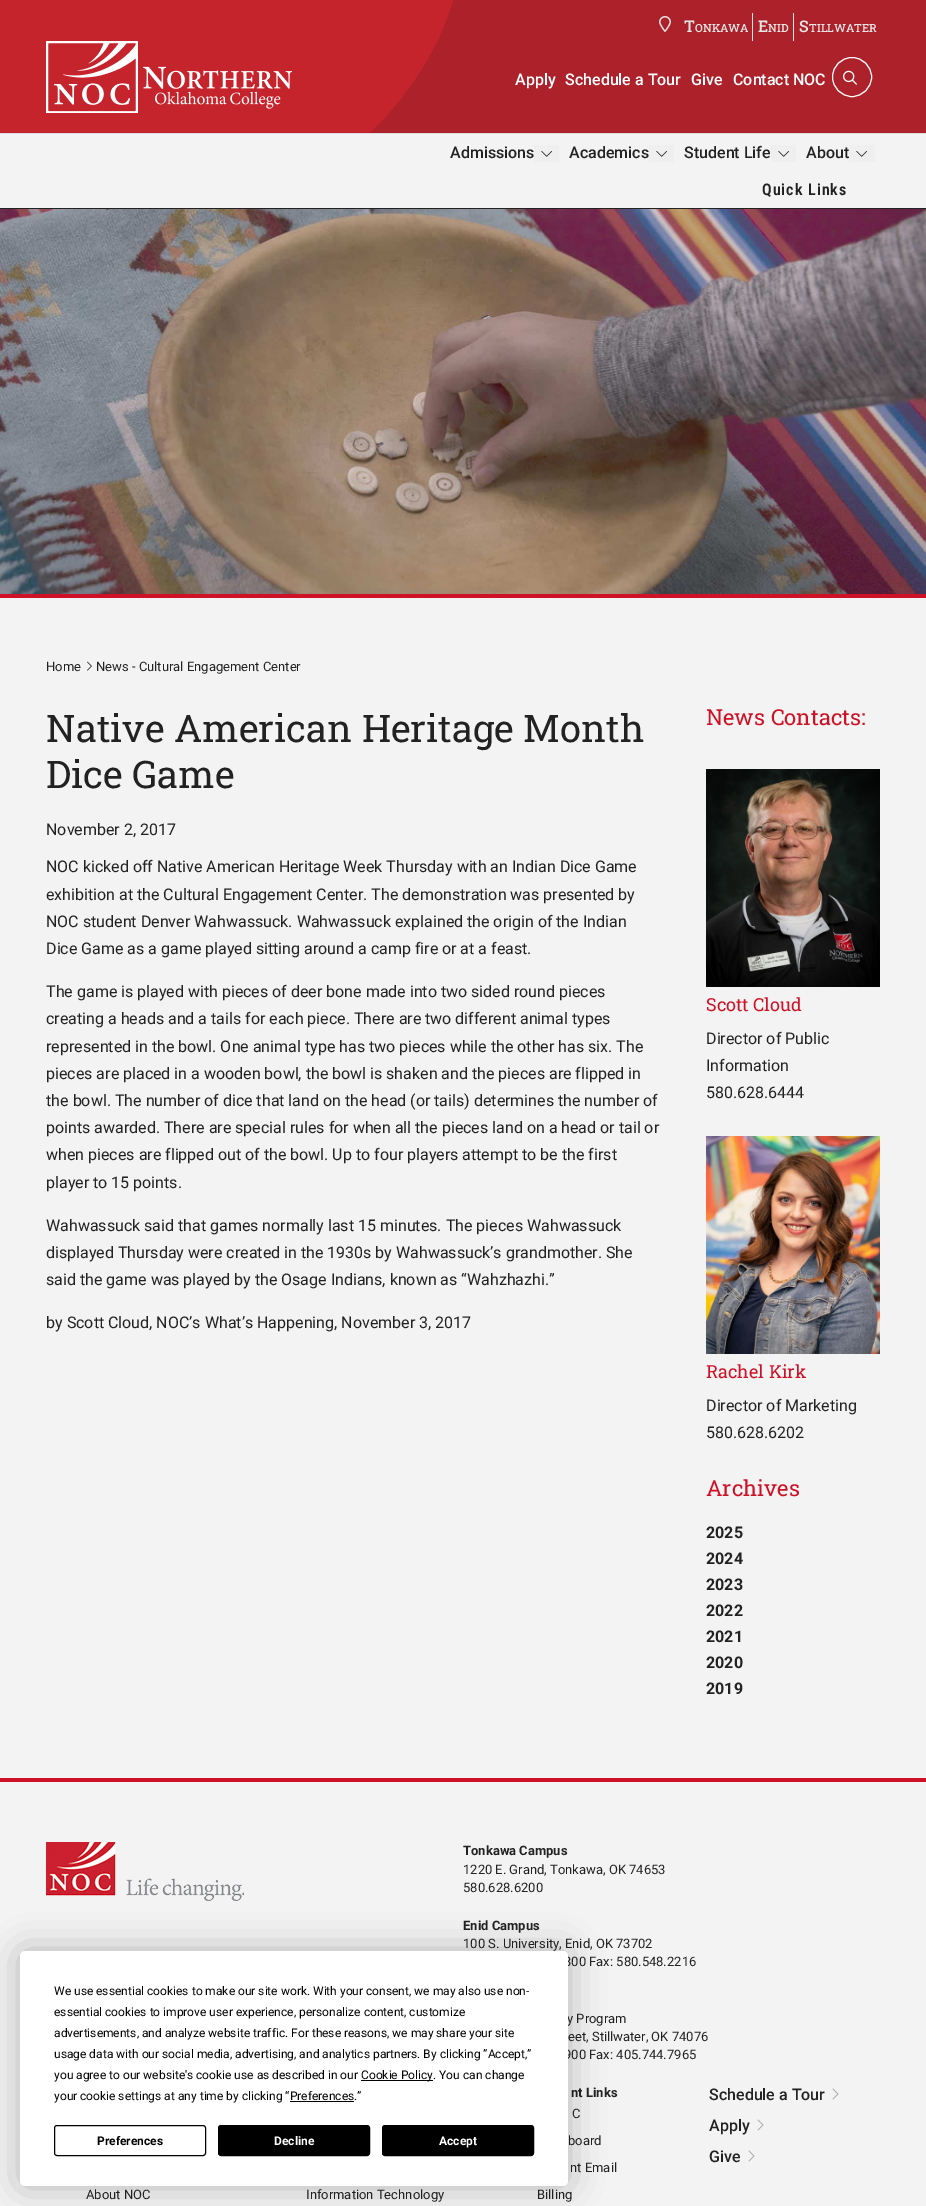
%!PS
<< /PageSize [926 2206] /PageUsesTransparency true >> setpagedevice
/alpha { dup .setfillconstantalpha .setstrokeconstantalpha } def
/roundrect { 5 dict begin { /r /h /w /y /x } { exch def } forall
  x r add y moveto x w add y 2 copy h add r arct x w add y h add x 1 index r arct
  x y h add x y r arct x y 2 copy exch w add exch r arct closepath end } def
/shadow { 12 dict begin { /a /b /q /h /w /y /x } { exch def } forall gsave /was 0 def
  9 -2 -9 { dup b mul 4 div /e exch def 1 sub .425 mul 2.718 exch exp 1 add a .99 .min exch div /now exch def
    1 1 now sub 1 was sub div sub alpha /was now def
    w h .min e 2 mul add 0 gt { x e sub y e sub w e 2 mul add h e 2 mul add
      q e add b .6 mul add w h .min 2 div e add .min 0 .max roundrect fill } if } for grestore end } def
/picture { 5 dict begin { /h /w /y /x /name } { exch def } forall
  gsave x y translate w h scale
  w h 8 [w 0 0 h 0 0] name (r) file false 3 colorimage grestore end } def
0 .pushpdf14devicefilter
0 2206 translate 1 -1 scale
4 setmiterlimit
1 setgray
0 0 926 2206 rectfill
0.859 setgray
0 133 926 1 rectfill
gsave newpath 370 0 moveto 926 0 lineto 926 133 lineto 370 133 lineto closepath clip newpath 0 0 translate 936 936 scale
<< /ShadingType 3 /ColorSpace /DeviceRGB /Coords [0 0 0 0 0 1] /Extend [true true] /Function << /FunctionType 3 /Domain [0 1] /Functions [<< /FunctionType 2 /Domain [0 1] /C0 [0.773 0.141 0.176] /C1 [0.773 0.141 0.176] /N 1 >> << /FunctionType 2 /Domain [0 1] /C0 [0.678 0.129 0.165] /C1 [0.678 0.129 0.165] /N 1 >>] /Bounds [0.4] /Encode [0 1 0 1] >> >> shfill grestore
gsave
0 0 926 133 rectclip
0.773 0.141 0.176 setrgbcolor
newpath 0 0 moveto 453 0 lineto 421 111 309 206 153 266 curveto 0 266 lineto closepath fill
grestore
(img1.rgb) 659 16 12 16 picture
0.902 setgray
752 13 1 28 rectfill
/RobotoSlab-Medium [16 0 0 -16 0 0] selectfont
684 32 moveto (T) show
/RobotoSlab-Medium [11.25 0 0 -11.25 0 0] selectfont
695 32 moveto (ONKAWA) show
793 13 1 28 rectfill
/RobotoSlab-Medium [16 0 0 -16 0 0] selectfont
758 32 moveto (E) show
/RobotoSlab-Medium [11.25 0 0 -11.25 0 0] selectfont
768 32 moveto (NID) show
/RobotoSlab-Medium [16 0 0 -16 0 0] selectfont
799 32 moveto (S) show
/RobotoSlab-Medium [11.25 0 0 -11.25 0 0] selectfont
809 32 moveto (TILLWATER) show
(img2.rgb) 46 41 246 72 picture
/Roboto-Medium [16 0 0 -16 0 0] selectfont
1 setgray
515 85 moveto (Apply) show
565 85 moveto (Schedule a Tour) show
691 85 moveto (Give) show
733 85 moveto (Contact NOC) show
newpath 852 77 19.5 0 360 arc closepath stroke
(img3.rgb) 843 70 14 15 picture
0.953 setgray
0 134 926 74 rectfill
0.133 setgray
0 208 926 1 rectfill
450 158 moveto (Admissions) show
0.937 setgray
534 145 25 17 rectfill
(img4.rgb) 541 151 11 6 picture
0.133 setgray
569 158 moveto (Academics) show
0.937 setgray
649 145 25 17 rectfill
(img4.rgb) 656 151 11 6 picture
0.133 setgray
684 158 moveto (Student Life) show
0.937 setgray
771 145 25 17 rectfill
(img4.rgb) 778 151 11 6 picture
0.133 setgray
806 158 moveto (About) show
0.937 setgray
849 145 26 17 rectfill
(img4.rgb) 856 151 11 6 picture
/RobotoCondensed-SemiBold [16 0 0 -16 0 0] selectfont
0.133 setgray
762 195 moveto 1 0 (Quick Links) ashow
(img5.rgb) 0 209 926 385 picture
0.808 0.067 0.149 setrgbcolor
0 594 926 4 rectfill
0.953 setgray
0 598 926 1180 rectfill
/Roboto-Regular [13 0 0 -13 0 0] selectfont
0.133 setgray
46 671 moveto (Home) show
(img6.rgb) 87 661 5 10 picture
96 671 moveto (News - Cultural Engagement Center) show
/RobotoSlab-Regular [38 0 0 -38 0 0] selectfont
46 742 moveto (Native American Heritage Month) show
46 788 moveto (Dice Game) show
/Roboto-Regular [16 0 0 -16 0 0] selectfont
46 835 moveto (November 2, 2017) show
46 872 moveto (NOC kicked off Native American Heritage Week Thursday with an Indian Dice Game) show
46 900 moveto (exhibition at the Cultural Engagement Center. The demonstration was presented by) show
46 927 moveto (NOC student Denver Wahwassuck. Wahwassuck explained the origin of the Indian) show
46 954 moveto (Dice Game as a game played sitting around a camp fire or at a feast.) show
46 997 moveto (The game is played with pieces of deer bone made into two sided round pieces) show
46 1024 moveto (creating a heads and a tails for each piece. There are two different animal types) show
46 1052 moveto (represented in the bowl. One animal type has two pieces while the other has six. The) show
46 1079 moveto (pieces are placed in a wooden bowl, the bowl is shaken and the pieces are flipped in) show
46 1106 moveto (the bowl. The number of dice that land on the head \(or tails\) determines the number of) show
46 1133 moveto (points awarded. There are special rules for when all the pieces land on a head or tail or) show
46 1160 moveto (when pieces are flipped out of the bowl. Up to four players attempt to be the first) show
46 1188 moveto (player to 15 points.) show
46 1231 moveto (Wahwassuck said that games normally last 15 minutes. The pieces Wahwassuck) show
46 1258 moveto (displayed Thursday were created in the 1930s by Wahwassuck’s grandmother. She) show
46 1285 moveto (said the game was played by the Osage Indians, known as “Wahzhazhi.”) show
46 1328 moveto (by Scott Cloud, NOC’s What’s Happening, November 3, 2017) show
/RobotoSlab-Regular [22 0 0 -22 0 0] selectfont
0.808 0.067 0.149 setrgbcolor
706 725 moveto (News Contacts:) show
(img7.rgb) 706 769 174 218 picture
/RobotoSlab-Regular [18 0 0 -18 0 0] selectfont
706 1011 moveto (Scott Cloud) show
/Roboto-Regular [16 0 0 -16 0 0] selectfont
0.133 setgray
706 1044 moveto (Director of Public) show
706 1071 moveto (Information) show
706 1098 moveto (580.628.6444) show
(img8.rgb) 706 1136 174 218 picture
/RobotoSlab-Regular [18 0 0 -18 0 0] selectfont
0.808 0.067 0.149 setrgbcolor
706 1378 moveto (Rachel Kirk) show
/Roboto-Regular [16 0 0 -16 0 0] selectfont
0.133 setgray
706 1411 moveto (Director of Marketing) show
706 1438 moveto (580.628.6202) show
/RobotoSlab-Regular [22 0 0 -22 0 0] selectfont
0.808 0.067 0.149 setrgbcolor
706 1496 moveto (Archives) show
/Roboto-Bold [16 0 0 -16 0 0] selectfont
0.133 setgray
706 1538 moveto (2025) show
706 1564 moveto (2024) show
706 1590 moveto (2023) show
706 1616 moveto (2022) show
706 1642 moveto (2021) show
706 1668 moveto (2020) show
706 1694 moveto (2019) show
0.953 setgray
0 1782 926 424 rectfill
0.808 0.067 0.149 setrgbcolor
0 1778 926 4 rectfill
(img9.rgb) 46 1842 198 59 picture
/Roboto-Bold [13 0 0 -13 0 0] selectfont
0.133 setgray
463 1855 moveto (Tonkawa Campus) show
/Roboto-Regular [13 0 0 -13 0 0] selectfont
463 1874 moveto (1220 E. Grand, Tonkawa, OK 74653) show
463 1892 moveto (580.628.6200) show
/Roboto-Bold [13 0 0 -13 0 0] selectfont
463 1930 moveto (Enid Campus) show
/Roboto-Regular [13 0 0 -13 0 0] selectfont
463 1948 moveto (100 S. University, Enid, OK 73702) show
564 1966 moveto (300 Fax: 580.548.2216) show
567 2023 moveto (y Program) show
568 2041 moveto (eet, Stillwater, OK 74076) show
564 2059 moveto (900 Fax: 405.744.7965) show
/Roboto-Bold [13 0 0 -13 0 0] selectfont
571 2097 moveto (nt Links) show
/Roboto-Regular [13 0 0 -13 0 0] selectfont
572 2118 moveto (C) show
568 2145 moveto (board) show
570 2172 moveto (nt Email) show
537 2199 moveto (Billing) show
/Roboto-Medium [16 0 0 -16 0 0] selectfont
709 2100 moveto (Schedule a Tour) show
(img10.rgb) 832 2088 7 12 picture
709 2131 moveto (Apply) show
(img10.rgb) 757 2119 7 12 picture
709 2162 moveto (Give) show
(img10.rgb) 748 2150 7 12 picture
/Roboto-Regular [13 0 0 -13 0 0] selectfont
86 2199 moveto (About NOC) show
306 2199 moveto (Information Technology) show
0 setgray
20 1951 548 235 5 17.5 0.25 shadow
1 setgray
20 1951 548 235 5 roundrect fill
/Roboto-Regular [12 0 0 -12 0 0] selectfont
0 setgray
54 1995 moveto (We use essential cookies to make our site work. With your consent, we may also use non-) show
54 2016 moveto (essential cookies to improve user experience, personalize content, customize) show
54 2037 moveto (advertisements, and analyze website traffic. For these reasons, we may share your site) show
54 2058 moveto (usage data with our social media, advertising, and analytics partners. By clicking ”Accept,”) show
54 2079 moveto (you agree to our website's cookie use as described in our) show
361 2080 72 1 rectfill
361 2079 moveto (Cookie Policy. You can change) show
54 2100 moveto (your cookie settings at any time by clicking “Preferences.”) show
290 2101 64 1 rectfill
54.5 2125.5 151 30 2.5 roundrect stroke
/Roboto-Bold [12 0 0 -12 0 0] selectfont
97 2145 moveto (Preferences) show
218.5 2125.5 151 30 2.5 roundrect gsave fill grestore
stroke
1 setgray
274 2145 moveto (Decline) show
0 setgray
382.5 2125.5 151 30 2.5 roundrect gsave fill grestore
stroke
1 setgray
439 2145 moveto (Accept) show
.poppdf14devicefilter showpage
